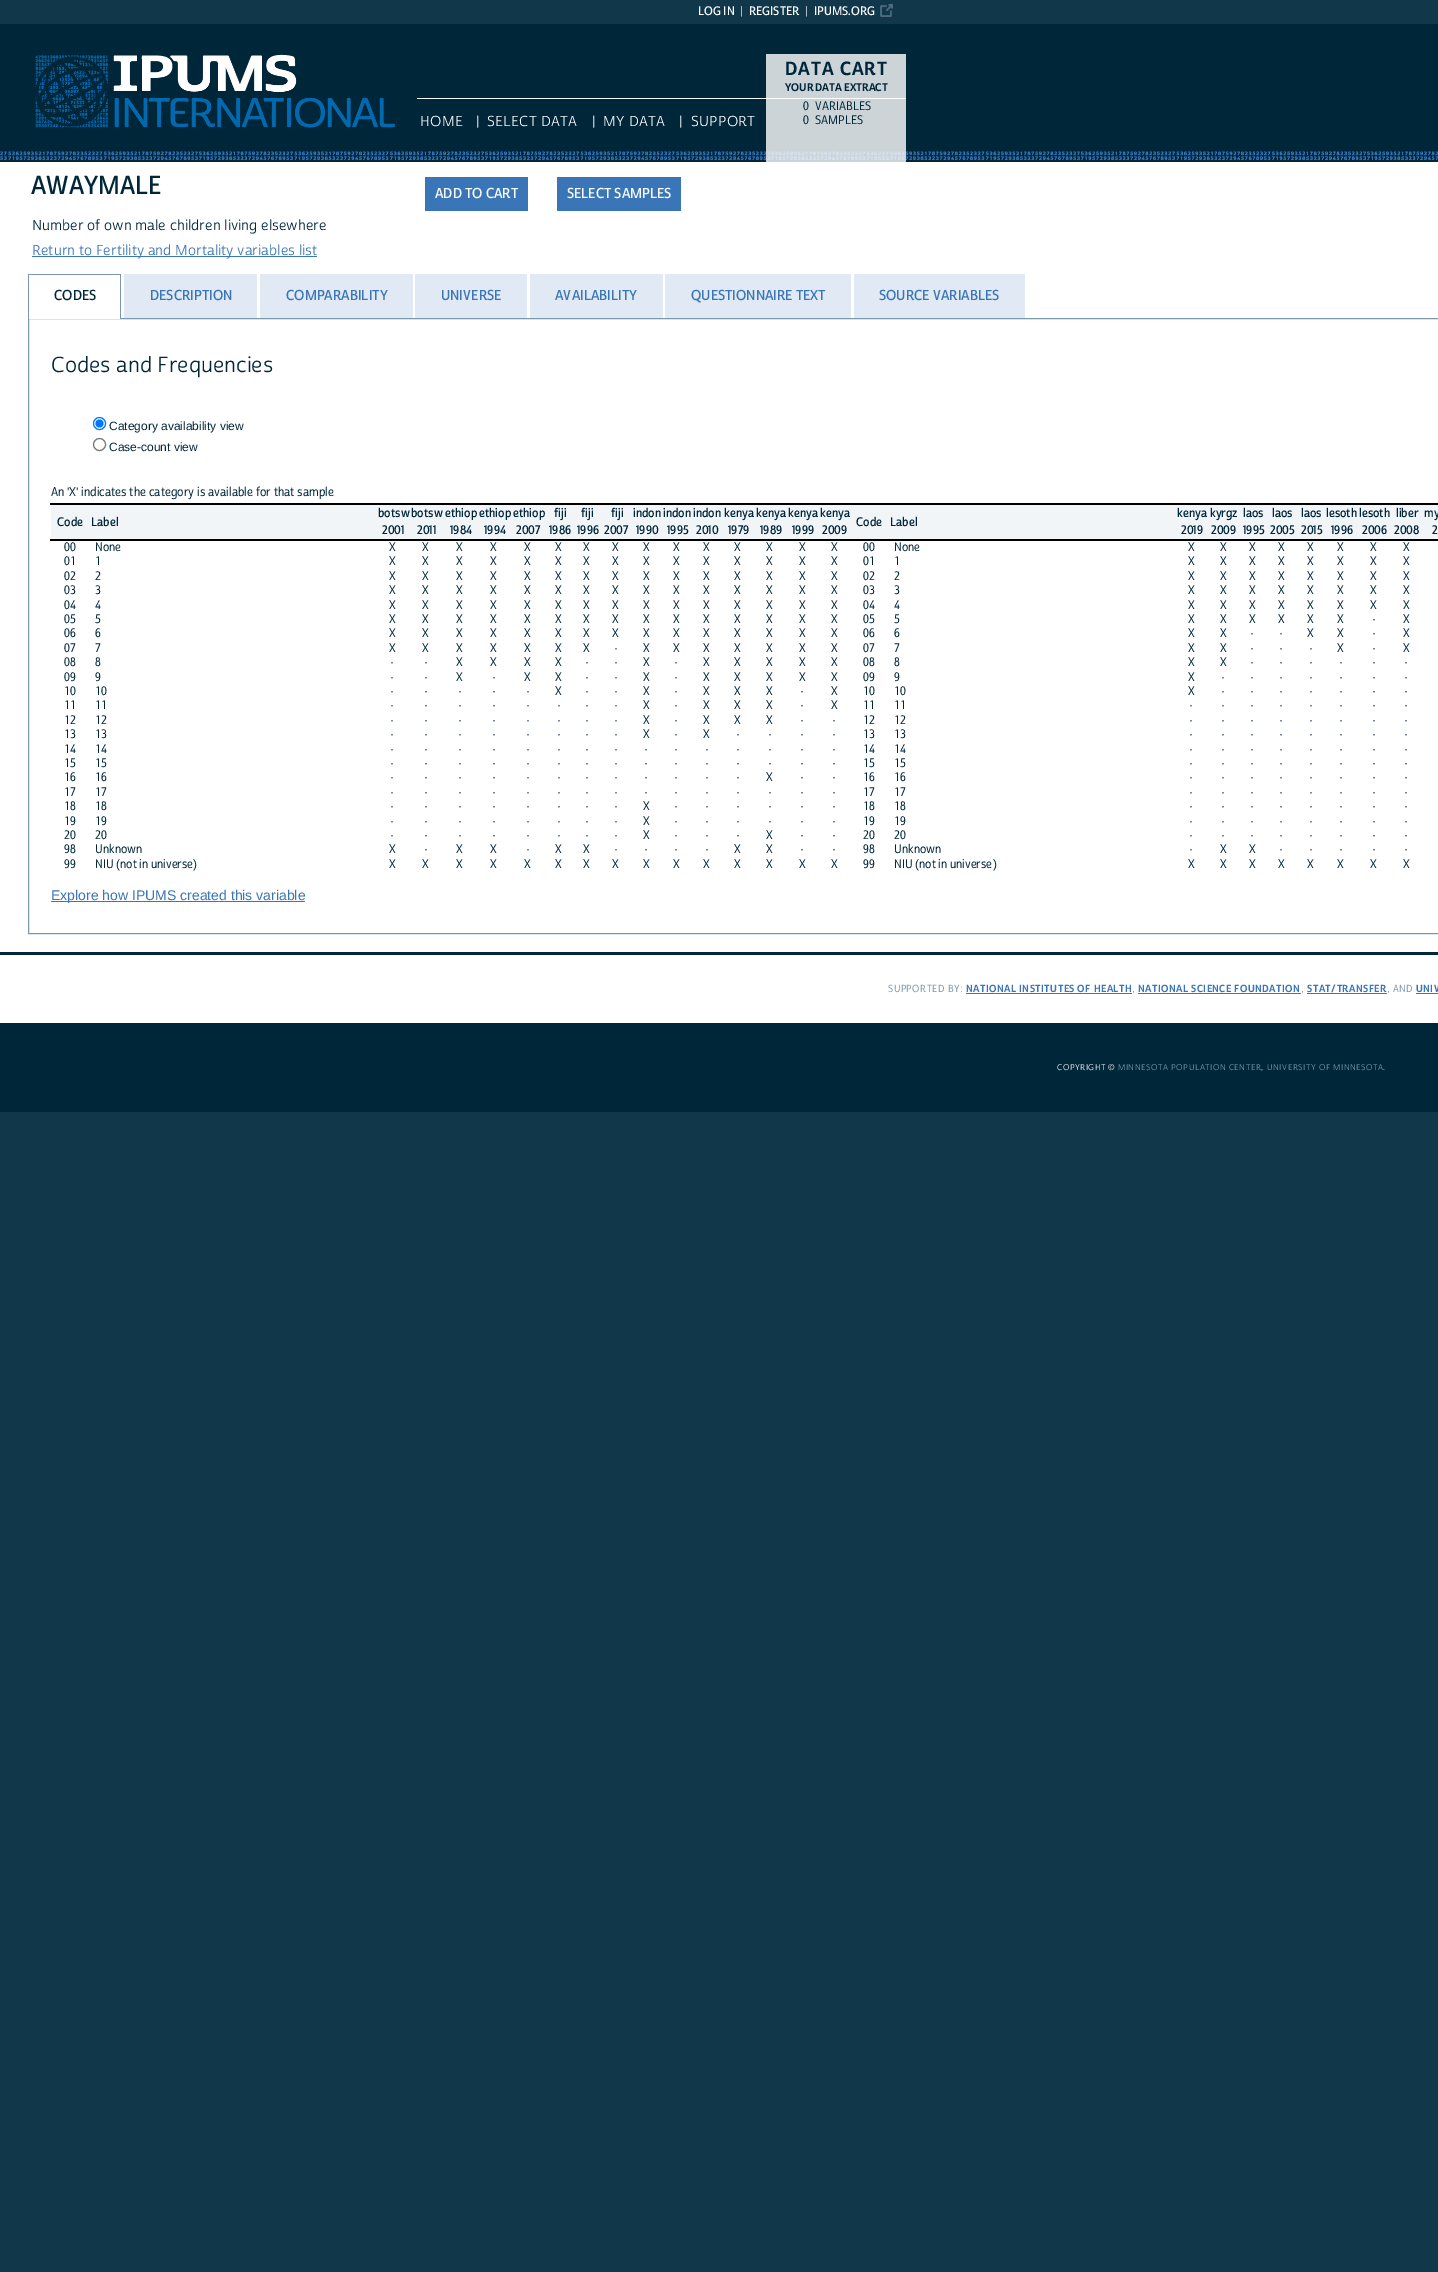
%!PS
<< /PageSize [1438 2272] /PageUsesTransparency true >> setpagedevice
/alpha { dup .setfillconstantalpha .setstrokeconstantalpha } def
/picture { 5 dict begin { /h /w /y /x /name } { exch def } forall
  gsave x y translate w h scale
  w h 8 [w 0 0 h 0 0] name (r) file false 3 colorimage grestore end } def
0 .pushpdf14devicefilter
0 2272 translate 1 -1 scale
4 setmiterlimit
0.067 0.216 0.294 setrgbcolor
0 0 1438 2272 rectfill
/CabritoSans-Bold [12 0 0 -12 0 0] selectfont
0.984 0.988 0.988 setrgbcolor
698 15 moveto (LOG IN) show
/CabritoSans-Medium [12 0 0 -12 0 0] selectfont
0.941 0.902 0.941 setrgbcolor
740 15 moveto (|) show
/CabritoSans-Bold [12 0 0 -12 0 0] selectfont
0.984 0.988 0.988 setrgbcolor
749 15 moveto (REGISTER) show
/CabritoSans-Medium [12 0 0 -12 0 0] selectfont
0.941 0.902 0.941 setrgbcolor
805 15 moveto (|) show
/CabritoSans-Bold [12 0 0 -12 0 0] selectfont
0.984 0.988 0.988 setrgbcolor
814 15 moveto (IPUMS.ORG) show
(img1.rgb) 880 4 13 13 picture
0 0.149 0.227 setrgbcolor
0 24 1438 138 rectfill
(img2.rgb) 0 151 1438 10 picture
(img3.rgb) 35 54 360 74 picture
0.961 0.973 0.976 setrgbcolor
417 98 489 1 rectfill
/CabritoSans-Medium [14 0 0 -14 0 0] selectfont
420 126 moveto 0.3 0 (HOME) ashow
476 126 moveto 0.3 0 (|) ashow
487 126 moveto 0.3 0 (SELECT DATA) ashow
592 126 moveto 0.3 0 (|) ashow
603 126 moveto 0.3 0 (MY DATA) ashow
679 126 moveto 0.3 0 (|) ashow
691 126 moveto 0.3 0 (SUPPORT) ashow
0.8 alpha
1 setgray
766 54 140 108 rectfill
/CabritoSans-ExtraBold [18.5 0 0 -18.5 0 0] selectfont
1 alpha
0 0.149 0.227 setrgbcolor
785 75 moveto 1 0 (DATA CART) ashow
/CabritoSans-ExtraBold [10.75 0 0 -10.75 0 0] selectfont
785 91 moveto (YOUR DATA EXTRACT) show
/CabritoSans-SemiBold [12 0 0 -12 0 0] selectfont
803 110 moveto (0) show
815 110 moveto (VARIABLES) show
803 124 moveto (0) show
815 124 moveto (SAMPLES) show
1 setgray
0 162 1438 790 rectfill
/CabritoSans-Bold [25.25 0 0 -25.25 0 0] selectfont
0 0.149 0.227 setrgbcolor
31 194 moveto (AWAYMALE) show
/CabritoSans-Medium [14 0 0 -14 0 0] selectfont
32 230 moveto (Number of own male children living elsewhere) show
0.224 0.459 0.718 setrgbcolor
32 256 285 1 rectfill
32 255 moveto (Return to Fertility and Mortality variables list) show
425 177 103 34 rectfill
/CabritoSans-Bold [14 0 0 -14 0 0] selectfont
0.984 0.988 0.988 setrgbcolor
435 198 moveto (ADD TO CART) show
0.224 0.459 0.718 setrgbcolor
557 177 124 34 rectfill
0.984 0.988 0.988 setrgbcolor
567 198 moveto (SELECT SAMPLES) show
0.478 0.6 0.675 setrgbcolor
28.5 318.5 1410 615 rectstroke
1 setgray
29 318 91 1 rectfill
0.478 0.6 0.675 setrgbcolor
28 274 93 1 rectfill
120 274 1 45 rectfill
28 274 1 45 rectfill
0 0.149 0.227 setrgbcolor
54 300 moveto (CODES) show
0.882 0.918 0.957 setrgbcolor
125 275 131 43 rectfill
124 274 133 1 rectfill
256 274 1 44 rectfill
124 274 1 44 rectfill
0.224 0.459 0.718 setrgbcolor
150 300 moveto (DESCRIPTION) show
0.882 0.918 0.957 setrgbcolor
261 275 151 43 rectfill
260 274 153 1 rectfill
412 274 1 44 rectfill
260 274 1 44 rectfill
0.224 0.459 0.718 setrgbcolor
286 300 moveto (COMPARABILITY) show
0.882 0.918 0.957 setrgbcolor
416 275 110 43 rectfill
415 274 112 1 rectfill
526 274 1 44 rectfill
415 274 1 44 rectfill
0.224 0.459 0.718 setrgbcolor
441 300 moveto (UNIVERSE) show
0.882 0.918 0.957 setrgbcolor
531 275 131 43 rectfill
530 274 133 1 rectfill
662 274 1 44 rectfill
530 274 1 44 rectfill
0.224 0.459 0.718 setrgbcolor
555 300 moveto (AVAILABILITY) show
0.882 0.918 0.957 setrgbcolor
666 275 184 43 rectfill
665 274 186 1 rectfill
850 274 1 44 rectfill
665 274 1 44 rectfill
0.224 0.459 0.718 setrgbcolor
691 300 moveto (QUESTIONNAIRE TEXT) show
0.882 0.918 0.957 setrgbcolor
855 275 169 43 rectfill
854 274 171 1 rectfill
1024 274 1 44 rectfill
854 274 1 44 rectfill
0.224 0.459 0.718 setrgbcolor
879 300 moveto (SOURCE VARIABLES) show
/CabritoSans-Medium [21 0 0 -21 0 0] selectfont
0 0.149 0.227 setrgbcolor
51 372 moveto (Codes and Frequencies) show
0 0.459 1 setrgbcolor
newpath 99.5 423.5 6 0 360 arc closepath stroke
newpath 99.5 423.5 4 0 360 arc closepath fill
/LiberationSans-Regular [12 0 0 -12 0 0] selectfont
0 0.149 0.227 setrgbcolor
109 430 moveto (Category availability view) show
0.463 setgray
newpath 99.5 444.5 6 0 360 arc closepath stroke
0 0.149 0.227 setrgbcolor
109 451 moveto (Case-count view) show
/CabritoSans-SemiBold [12.3 0 0 -12.3 0 0] selectfont
51 496 moveto (An) show
/LiberationSans-Regular [12.3 0 0 -12.3 0 0] selectfont
67 496 moveto (') show
/CabritoSans-SemiBold [12.3 0 0 -12.3 0 0] selectfont
69 496 moveto (X) show
/LiberationSans-Regular [12.3 0 0 -12.3 0 0] selectfont
76 496 moveto (') show
/CabritoSans-SemiBold [12.3 0 0 -12.3 0 0] selectfont
81 496 moveto (indicates the category is available for that sample) show
0.945 0.961 0.969 setrgbcolor
51 505 1387 34 rectfill
/CabritoSans-Bold [12 0 0 -12 0 0] selectfont
0 0.149 0.227 setrgbcolor
57 526 moveto (Code) show
91 526 moveto (Label) show
378 517 moveto (botsw) show
382 534 moveto (2001) show
411 517 moveto (botsw) show
417 534 moveto (2011) show
445 517 moveto (ethiop) show
450 534 moveto (1984) show
479 517 moveto (ethiop) show
484 534 moveto (1994) show
513 517 moveto (ethiop) show
516 534 moveto (2007) show
554 517 moveto (fiji) show
549 534 moveto (1986) show
581 517 moveto (fiji) show
577 534 moveto (1996) show
611 517 moveto (fiji) show
604 534 moveto (2007) show
633 517 moveto (indon) show
636 534 moveto (1990) show
663 517 moveto (indon) show
667 534 moveto (1995) show
693 517 moveto (indon) show
696 534 moveto (2010) show
724 517 moveto (kenya) show
728 534 moveto (1979) show
756 517 moveto (kenya) show
760 534 moveto (1989) show
788 517 moveto (kenya) show
792 534 moveto (1999) show
820 517 moveto (kenya) show
822 534 moveto (2009) show
856 526 moveto (Code) show
890 526 moveto (Label) show
1177 517 moveto (kenya kyrgz) show
1181 534 moveto (2019) show
1243 517 moveto (laos) show
1243 534 moveto (1995) show
1272 517 moveto (laos) show
1270 534 moveto (2005) show
1301 517 moveto (laos) show
1301 534 moveto (2015) show
1326 517 moveto (lesoth) show
1331 534 moveto (1996) show
1359 517 moveto (lesoth) show
1362 534 moveto (2006) show
1396 517 moveto (liber) show
1394 534 moveto (2008) show
0 setgray
50 503 1388 2 rectfill
50 539 1388 2 rectfill
0 0.149 0.227 setrgbcolor
1424 517 moveto (my) show
1432 534 moveto (2) show
1211 534 moveto (2009) show
/CabritoSans-SemiBold [12 0 0 -12 0 0] selectfont
64 551 moveto (00) show
95 551 moveto (None) show
389 551 moveto (X) show
422 551 moveto (X) show
456 551 moveto (X) show
490 551 moveto (X) show
524 551 moveto (X) show
555 551 moveto (X) show
583 551 moveto (X) show
612 551 moveto (X) show
643 551 moveto (X) show
673 551 moveto (X) show
703 551 moveto (X) show
734 551 moveto (X) show
766 551 moveto (X) show
799 551 moveto (X) show
831 551 moveto (X) show
863 551 moveto (00) show
894 551 moveto (None) show
1188 551 moveto (X) show
1220 551 moveto (X) show
1249 551 moveto (X) show
1278 551 moveto (X) show
1307 551 moveto (X) show
1337 551 moveto (X) show
1370 551 moveto (X) show
1403 551 moveto (X) show
64 565 moveto (01) show
95 565 moveto (1) show
389 565 moveto (X) show
422 565 moveto (X) show
456 565 moveto (X) show
490 565 moveto (X) show
524 565 moveto (X) show
555 565 moveto (X) show
583 565 moveto (X) show
612 565 moveto (X) show
643 565 moveto (X) show
673 565 moveto (X) show
703 565 moveto (X) show
734 565 moveto (X) show
766 565 moveto (X) show
799 565 moveto (X) show
831 565 moveto (X) show
863 565 moveto (01) show
894 565 moveto (1) show
1188 565 moveto (X) show
1220 565 moveto (X) show
1249 565 moveto (X) show
1278 565 moveto (X) show
1307 565 moveto (X) show
1337 565 moveto (X) show
1370 565 moveto (X) show
1403 565 moveto (X) show
64 580 moveto (02) show
95 580 moveto (2) show
389 580 moveto (X) show
422 580 moveto (X) show
456 580 moveto (X) show
490 580 moveto (X) show
524 580 moveto (X) show
555 580 moveto (X) show
583 580 moveto (X) show
612 580 moveto (X) show
643 580 moveto (X) show
673 580 moveto (X) show
703 580 moveto (X) show
734 580 moveto (X) show
766 580 moveto (X) show
799 580 moveto (X) show
831 580 moveto (X) show
863 580 moveto (02) show
894 580 moveto (2) show
1188 580 moveto (X) show
1220 580 moveto (X) show
1249 580 moveto (X) show
1278 580 moveto (X) show
1307 580 moveto (X) show
1337 580 moveto (X) show
1370 580 moveto (X) show
1403 580 moveto (X) show
64 594 moveto (03) show
95 594 moveto (3) show
389 594 moveto (X) show
422 594 moveto (X) show
456 594 moveto (X) show
490 594 moveto (X) show
524 594 moveto (X) show
555 594 moveto (X) show
583 594 moveto (X) show
612 594 moveto (X) show
643 594 moveto (X) show
673 594 moveto (X) show
703 594 moveto (X) show
734 594 moveto (X) show
766 594 moveto (X) show
799 594 moveto (X) show
831 594 moveto (X) show
863 594 moveto (03) show
894 594 moveto (3) show
1188 594 moveto (X) show
1220 594 moveto (X) show
1249 594 moveto (X) show
1278 594 moveto (X) show
1307 594 moveto (X) show
1337 594 moveto (X) show
1370 594 moveto (X) show
1403 594 moveto (X) show
64 609 moveto (04) show
95 609 moveto (4) show
389 609 moveto (X) show
422 609 moveto (X) show
456 609 moveto (X) show
490 609 moveto (X) show
524 609 moveto (X) show
555 609 moveto (X) show
583 609 moveto (X) show
612 609 moveto (X) show
643 609 moveto (X) show
673 609 moveto (X) show
703 609 moveto (X) show
734 609 moveto (X) show
766 609 moveto (X) show
799 609 moveto (X) show
831 609 moveto (X) show
863 609 moveto (04) show
894 609 moveto (4) show
1188 609 moveto (X) show
1220 609 moveto (X) show
1249 609 moveto (X) show
1278 609 moveto (X) show
1307 609 moveto (X) show
1337 609 moveto (X) show
1370 609 moveto (X) show
1403 609 moveto (X) show
64 623 moveto (05) show
95 623 moveto (5) show
389 623 moveto (X) show
422 623 moveto (X) show
456 623 moveto (X) show
490 623 moveto (X) show
524 623 moveto (X) show
555 623 moveto (X) show
583 623 moveto (X) show
612 623 moveto (X) show
643 623 moveto (X) show
673 623 moveto (X) show
703 623 moveto (X) show
734 623 moveto (X) show
766 623 moveto (X) show
799 623 moveto (X) show
831 623 moveto (X) show
863 623 moveto (05) show
894 623 moveto (5) show
1188 623 moveto (X) show
1220 623 moveto (X) show
1249 623 moveto (X) show
1278 623 moveto (X) show
1307 623 moveto (X) show
1337 623 moveto (X) show
/LiberationSans-Regular [12 0 0 -12 0 0] selectfont
1372 623 moveto (·) show
/CabritoSans-SemiBold [12 0 0 -12 0 0] selectfont
1403 623 moveto (X) show
64 637 moveto (06) show
95 637 moveto (6) show
389 637 moveto (X) show
422 637 moveto (X) show
456 637 moveto (X) show
490 637 moveto (X) show
524 637 moveto (X) show
555 637 moveto (X) show
583 637 moveto (X) show
612 637 moveto (X) show
643 637 moveto (X) show
673 637 moveto (X) show
703 637 moveto (X) show
734 637 moveto (X) show
766 637 moveto (X) show
799 637 moveto (X) show
831 637 moveto (X) show
863 637 moveto (06) show
894 637 moveto (6) show
1188 637 moveto (X) show
1220 637 moveto (X) show
/LiberationSans-Regular [12 0 0 -12 0 0] selectfont
1250 637 moveto (·) show
1279 637 moveto (·) show
/CabritoSans-SemiBold [12 0 0 -12 0 0] selectfont
1307 637 moveto (X) show
1337 637 moveto (X) show
/LiberationSans-Regular [12 0 0 -12 0 0] selectfont
1372 637 moveto (·) show
/CabritoSans-SemiBold [12 0 0 -12 0 0] selectfont
1403 637 moveto (X) show
64 652 moveto (07) show
95 652 moveto (7) show
389 652 moveto (X) show
422 652 moveto (X) show
456 652 moveto (X) show
490 652 moveto (X) show
524 652 moveto (X) show
555 652 moveto (X) show
583 652 moveto (X) show
/LiberationSans-Regular [12 0 0 -12 0 0] selectfont
614 652 moveto (·) show
/CabritoSans-SemiBold [12 0 0 -12 0 0] selectfont
643 652 moveto (X) show
673 652 moveto (X) show
703 652 moveto (X) show
734 652 moveto (X) show
766 652 moveto (X) show
799 652 moveto (X) show
831 652 moveto (X) show
863 652 moveto (07) show
894 652 moveto (7) show
1188 652 moveto (X) show
1220 652 moveto (X) show
/LiberationSans-Regular [12 0 0 -12 0 0] selectfont
1250 652 moveto (·) show
1279 652 moveto (·) show
1309 652 moveto (·) show
/CabritoSans-SemiBold [12 0 0 -12 0 0] selectfont
1337 652 moveto (X) show
/LiberationSans-Regular [12 0 0 -12 0 0] selectfont
1372 652 moveto (·) show
/CabritoSans-SemiBold [12 0 0 -12 0 0] selectfont
1403 652 moveto (X) show
64 666 moveto (08) show
95 666 moveto (8) show
/LiberationSans-Regular [12 0 0 -12 0 0] selectfont
390 666 moveto (·) show
424 666 moveto (·) show
/CabritoSans-SemiBold [12 0 0 -12 0 0] selectfont
456 666 moveto (X) show
490 666 moveto (X) show
524 666 moveto (X) show
555 666 moveto (X) show
/LiberationSans-Regular [12 0 0 -12 0 0] selectfont
585 666 moveto (·) show
614 666 moveto (·) show
/CabritoSans-SemiBold [12 0 0 -12 0 0] selectfont
643 666 moveto (X) show
/LiberationSans-Regular [12 0 0 -12 0 0] selectfont
674 666 moveto (·) show
/CabritoSans-SemiBold [12 0 0 -12 0 0] selectfont
703 666 moveto (X) show
734 666 moveto (X) show
766 666 moveto (X) show
799 666 moveto (X) show
831 666 moveto (X) show
863 666 moveto (08) show
894 666 moveto (8) show
1188 666 moveto (X) show
1220 666 moveto (X) show
/LiberationSans-Regular [12 0 0 -12 0 0] selectfont
1250 666 moveto (·) show
1279 666 moveto (·) show
1309 666 moveto (·) show
1339 666 moveto (·) show
1372 666 moveto (·) show
1404 666 moveto (·) show
/CabritoSans-SemiBold [12 0 0 -12 0 0] selectfont
64 681 moveto (09) show
95 681 moveto (9) show
/LiberationSans-Regular [12 0 0 -12 0 0] selectfont
390 681 moveto (·) show
424 681 moveto (·) show
/CabritoSans-SemiBold [12 0 0 -12 0 0] selectfont
456 681 moveto (X) show
/LiberationSans-Regular [12 0 0 -12 0 0] selectfont
492 681 moveto (·) show
/CabritoSans-SemiBold [12 0 0 -12 0 0] selectfont
524 681 moveto (X) show
555 681 moveto (X) show
/LiberationSans-Regular [12 0 0 -12 0 0] selectfont
585 681 moveto (·) show
614 681 moveto (·) show
/CabritoSans-SemiBold [12 0 0 -12 0 0] selectfont
643 681 moveto (X) show
/LiberationSans-Regular [12 0 0 -12 0 0] selectfont
674 681 moveto (·) show
/CabritoSans-SemiBold [12 0 0 -12 0 0] selectfont
703 681 moveto (X) show
734 681 moveto (X) show
766 681 moveto (X) show
799 681 moveto (X) show
831 681 moveto (X) show
863 681 moveto (09) show
894 681 moveto (9) show
1188 681 moveto (X) show
/LiberationSans-Regular [12 0 0 -12 0 0] selectfont
1221 681 moveto (·) show
1250 681 moveto (·) show
1279 681 moveto (·) show
1309 681 moveto (·) show
1339 681 moveto (·) show
1372 681 moveto (·) show
1404 681 moveto (·) show
/CabritoSans-SemiBold [12 0 0 -12 0 0] selectfont
64 695 moveto (10) show
95 695 moveto (10) show
/LiberationSans-Regular [12 0 0 -12 0 0] selectfont
390 695 moveto (·) show
424 695 moveto (·) show
458 695 moveto (·) show
492 695 moveto (·) show
526 695 moveto (·) show
/CabritoSans-SemiBold [12 0 0 -12 0 0] selectfont
555 695 moveto (X) show
/LiberationSans-Regular [12 0 0 -12 0 0] selectfont
585 695 moveto (·) show
614 695 moveto (·) show
/CabritoSans-SemiBold [12 0 0 -12 0 0] selectfont
643 695 moveto (X) show
/LiberationSans-Regular [12 0 0 -12 0 0] selectfont
674 695 moveto (·) show
/CabritoSans-SemiBold [12 0 0 -12 0 0] selectfont
703 695 moveto (X) show
734 695 moveto (X) show
766 695 moveto (X) show
/LiberationSans-Regular [12 0 0 -12 0 0] selectfont
800 695 moveto (·) show
/CabritoSans-SemiBold [12 0 0 -12 0 0] selectfont
831 695 moveto (X) show
863 695 moveto (10) show
894 695 moveto (10) show
1188 695 moveto (X) show
/LiberationSans-Regular [12 0 0 -12 0 0] selectfont
1221 695 moveto (·) show
1250 695 moveto (·) show
1279 695 moveto (·) show
1309 695 moveto (·) show
1339 695 moveto (·) show
1372 695 moveto (·) show
1404 695 moveto (·) show
/CabritoSans-SemiBold [12 0 0 -12 0 0] selectfont
64 709 moveto (11) show
95 709 moveto (11) show
/LiberationSans-Regular [12 0 0 -12 0 0] selectfont
390 709 moveto (·) show
424 709 moveto (·) show
458 709 moveto (·) show
492 709 moveto (·) show
526 709 moveto (·) show
557 709 moveto (·) show
585 709 moveto (·) show
614 709 moveto (·) show
/CabritoSans-SemiBold [12 0 0 -12 0 0] selectfont
643 709 moveto (X) show
/LiberationSans-Regular [12 0 0 -12 0 0] selectfont
674 709 moveto (·) show
/CabritoSans-SemiBold [12 0 0 -12 0 0] selectfont
703 709 moveto (X) show
734 709 moveto (X) show
766 709 moveto (X) show
/LiberationSans-Regular [12 0 0 -12 0 0] selectfont
800 709 moveto (·) show
/CabritoSans-SemiBold [12 0 0 -12 0 0] selectfont
831 709 moveto (X) show
863 709 moveto (11) show
894 709 moveto (11) show
/LiberationSans-Regular [12 0 0 -12 0 0] selectfont
1189 709 moveto (·) show
1221 709 moveto (·) show
1250 709 moveto (·) show
1279 709 moveto (·) show
1309 709 moveto (·) show
1339 709 moveto (·) show
1372 709 moveto (·) show
1404 709 moveto (·) show
/CabritoSans-SemiBold [12 0 0 -12 0 0] selectfont
64 724 moveto (12) show
95 724 moveto (12) show
/LiberationSans-Regular [12 0 0 -12 0 0] selectfont
390 724 moveto (·) show
424 724 moveto (·) show
458 724 moveto (·) show
492 724 moveto (·) show
526 724 moveto (·) show
557 724 moveto (·) show
585 724 moveto (·) show
614 724 moveto (·) show
/CabritoSans-SemiBold [12 0 0 -12 0 0] selectfont
643 724 moveto (X) show
/LiberationSans-Regular [12 0 0 -12 0 0] selectfont
674 724 moveto (·) show
/CabritoSans-SemiBold [12 0 0 -12 0 0] selectfont
703 724 moveto (X) show
734 724 moveto (X) show
766 724 moveto (X) show
/LiberationSans-Regular [12 0 0 -12 0 0] selectfont
800 724 moveto (·) show
832 724 moveto (·) show
/CabritoSans-SemiBold [12 0 0 -12 0 0] selectfont
863 724 moveto (12) show
894 724 moveto (12) show
/LiberationSans-Regular [12 0 0 -12 0 0] selectfont
1189 724 moveto (·) show
1221 724 moveto (·) show
1250 724 moveto (·) show
1279 724 moveto (·) show
1309 724 moveto (·) show
1339 724 moveto (·) show
1372 724 moveto (·) show
1404 724 moveto (·) show
/CabritoSans-SemiBold [12 0 0 -12 0 0] selectfont
64 738 moveto (13) show
95 738 moveto (13) show
/LiberationSans-Regular [12 0 0 -12 0 0] selectfont
390 738 moveto (·) show
424 738 moveto (·) show
458 738 moveto (·) show
492 738 moveto (·) show
526 738 moveto (·) show
557 738 moveto (·) show
585 738 moveto (·) show
614 738 moveto (·) show
/CabritoSans-SemiBold [12 0 0 -12 0 0] selectfont
643 738 moveto (X) show
/LiberationSans-Regular [12 0 0 -12 0 0] selectfont
674 738 moveto (·) show
/CabritoSans-SemiBold [12 0 0 -12 0 0] selectfont
703 738 moveto (X) show
/LiberationSans-Regular [12 0 0 -12 0 0] selectfont
736 738 moveto (·) show
768 738 moveto (·) show
800 738 moveto (·) show
832 738 moveto (·) show
/CabritoSans-SemiBold [12 0 0 -12 0 0] selectfont
863 738 moveto (13) show
894 738 moveto (13) show
/LiberationSans-Regular [12 0 0 -12 0 0] selectfont
1189 738 moveto (·) show
1221 738 moveto (·) show
1250 738 moveto (·) show
1279 738 moveto (·) show
1309 738 moveto (·) show
1339 738 moveto (·) show
1372 738 moveto (·) show
1404 738 moveto (·) show
/CabritoSans-SemiBold [12 0 0 -12 0 0] selectfont
64 753 moveto (14) show
95 753 moveto (14) show
/LiberationSans-Regular [12 0 0 -12 0 0] selectfont
390 753 moveto (·) show
424 753 moveto (·) show
458 753 moveto (·) show
492 753 moveto (·) show
526 753 moveto (·) show
557 753 moveto (·) show
585 753 moveto (·) show
614 753 moveto (·) show
644 753 moveto (·) show
674 753 moveto (·) show
705 753 moveto (·) show
736 753 moveto (·) show
768 753 moveto (·) show
800 753 moveto (·) show
832 753 moveto (·) show
/CabritoSans-SemiBold [12 0 0 -12 0 0] selectfont
863 753 moveto (14) show
894 753 moveto (14) show
/LiberationSans-Regular [12 0 0 -12 0 0] selectfont
1189 753 moveto (·) show
1221 753 moveto (·) show
1250 753 moveto (·) show
1279 753 moveto (·) show
1309 753 moveto (·) show
1339 753 moveto (·) show
1372 753 moveto (·) show
1404 753 moveto (·) show
/CabritoSans-SemiBold [12 0 0 -12 0 0] selectfont
64 767 moveto (15) show
95 767 moveto (15) show
/LiberationSans-Regular [12 0 0 -12 0 0] selectfont
390 767 moveto (·) show
424 767 moveto (·) show
458 767 moveto (·) show
492 767 moveto (·) show
526 767 moveto (·) show
557 767 moveto (·) show
585 767 moveto (·) show
614 767 moveto (·) show
644 767 moveto (·) show
674 767 moveto (·) show
705 767 moveto (·) show
736 767 moveto (·) show
768 767 moveto (·) show
800 767 moveto (·) show
832 767 moveto (·) show
/CabritoSans-SemiBold [12 0 0 -12 0 0] selectfont
863 767 moveto (15) show
894 767 moveto (15) show
/LiberationSans-Regular [12 0 0 -12 0 0] selectfont
1189 767 moveto (·) show
1221 767 moveto (·) show
1250 767 moveto (·) show
1279 767 moveto (·) show
1309 767 moveto (·) show
1339 767 moveto (·) show
1372 767 moveto (·) show
1404 767 moveto (·) show
/CabritoSans-SemiBold [12 0 0 -12 0 0] selectfont
64 781 moveto (16) show
95 781 moveto (16) show
/LiberationSans-Regular [12 0 0 -12 0 0] selectfont
390 781 moveto (·) show
424 781 moveto (·) show
458 781 moveto (·) show
492 781 moveto (·) show
526 781 moveto (·) show
557 781 moveto (·) show
585 781 moveto (·) show
614 781 moveto (·) show
644 781 moveto (·) show
674 781 moveto (·) show
705 781 moveto (·) show
736 781 moveto (·) show
/CabritoSans-SemiBold [12 0 0 -12 0 0] selectfont
766 781 moveto (X) show
/LiberationSans-Regular [12 0 0 -12 0 0] selectfont
800 781 moveto (·) show
832 781 moveto (·) show
/CabritoSans-SemiBold [12 0 0 -12 0 0] selectfont
863 781 moveto (16) show
894 781 moveto (16) show
/LiberationSans-Regular [12 0 0 -12 0 0] selectfont
1189 781 moveto (·) show
1221 781 moveto (·) show
1250 781 moveto (·) show
1279 781 moveto (·) show
1309 781 moveto (·) show
1339 781 moveto (·) show
1372 781 moveto (·) show
1404 781 moveto (·) show
/CabritoSans-SemiBold [12 0 0 -12 0 0] selectfont
64 796 moveto (17) show
95 796 moveto (17) show
/LiberationSans-Regular [12 0 0 -12 0 0] selectfont
390 796 moveto (·) show
424 796 moveto (·) show
458 796 moveto (·) show
492 796 moveto (·) show
526 796 moveto (·) show
557 796 moveto (·) show
585 796 moveto (·) show
614 796 moveto (·) show
644 796 moveto (·) show
674 796 moveto (·) show
705 796 moveto (·) show
736 796 moveto (·) show
768 796 moveto (·) show
800 796 moveto (·) show
832 796 moveto (·) show
/CabritoSans-SemiBold [12 0 0 -12 0 0] selectfont
863 796 moveto (17) show
894 796 moveto (17) show
/LiberationSans-Regular [12 0 0 -12 0 0] selectfont
1189 796 moveto (·) show
1221 796 moveto (·) show
1250 796 moveto (·) show
1279 796 moveto (·) show
1309 796 moveto (·) show
1339 796 moveto (·) show
1372 796 moveto (·) show
1404 796 moveto (·) show
/CabritoSans-SemiBold [12 0 0 -12 0 0] selectfont
64 810 moveto (18) show
95 810 moveto (18) show
/LiberationSans-Regular [12 0 0 -12 0 0] selectfont
390 810 moveto (·) show
424 810 moveto (·) show
458 810 moveto (·) show
492 810 moveto (·) show
526 810 moveto (·) show
557 810 moveto (·) show
585 810 moveto (·) show
614 810 moveto (·) show
/CabritoSans-SemiBold [12 0 0 -12 0 0] selectfont
643 810 moveto (X) show
/LiberationSans-Regular [12 0 0 -12 0 0] selectfont
674 810 moveto (·) show
705 810 moveto (·) show
736 810 moveto (·) show
768 810 moveto (·) show
800 810 moveto (·) show
832 810 moveto (·) show
/CabritoSans-SemiBold [12 0 0 -12 0 0] selectfont
863 810 moveto (18) show
894 810 moveto (18) show
/LiberationSans-Regular [12 0 0 -12 0 0] selectfont
1189 810 moveto (·) show
1221 810 moveto (·) show
1250 810 moveto (·) show
1279 810 moveto (·) show
1309 810 moveto (·) show
1339 810 moveto (·) show
1372 810 moveto (·) show
1404 810 moveto (·) show
/CabritoSans-SemiBold [12 0 0 -12 0 0] selectfont
64 825 moveto (19) show
95 825 moveto (19) show
/LiberationSans-Regular [12 0 0 -12 0 0] selectfont
390 825 moveto (·) show
424 825 moveto (·) show
458 825 moveto (·) show
492 825 moveto (·) show
526 825 moveto (·) show
557 825 moveto (·) show
585 825 moveto (·) show
614 825 moveto (·) show
/CabritoSans-SemiBold [12 0 0 -12 0 0] selectfont
643 825 moveto (X) show
/LiberationSans-Regular [12 0 0 -12 0 0] selectfont
674 825 moveto (·) show
705 825 moveto (·) show
736 825 moveto (·) show
768 825 moveto (·) show
800 825 moveto (·) show
832 825 moveto (·) show
/CabritoSans-SemiBold [12 0 0 -12 0 0] selectfont
863 825 moveto (19) show
894 825 moveto (19) show
/LiberationSans-Regular [12 0 0 -12 0 0] selectfont
1189 825 moveto (·) show
1221 825 moveto (·) show
1250 825 moveto (·) show
1279 825 moveto (·) show
1309 825 moveto (·) show
1339 825 moveto (·) show
1372 825 moveto (·) show
1404 825 moveto (·) show
/CabritoSans-SemiBold [12 0 0 -12 0 0] selectfont
64 839 moveto (20) show
95 839 moveto (20) show
/LiberationSans-Regular [12 0 0 -12 0 0] selectfont
390 839 moveto (·) show
424 839 moveto (·) show
458 839 moveto (·) show
492 839 moveto (·) show
526 839 moveto (·) show
557 839 moveto (·) show
585 839 moveto (·) show
614 839 moveto (·) show
/CabritoSans-SemiBold [12 0 0 -12 0 0] selectfont
643 839 moveto (X) show
/LiberationSans-Regular [12 0 0 -12 0 0] selectfont
674 839 moveto (·) show
705 839 moveto (·) show
736 839 moveto (·) show
/CabritoSans-SemiBold [12 0 0 -12 0 0] selectfont
766 839 moveto (X) show
/LiberationSans-Regular [12 0 0 -12 0 0] selectfont
800 839 moveto (·) show
832 839 moveto (·) show
/CabritoSans-SemiBold [12 0 0 -12 0 0] selectfont
863 839 moveto (20) show
894 839 moveto (20) show
/LiberationSans-Regular [12 0 0 -12 0 0] selectfont
1189 839 moveto (·) show
1221 839 moveto (·) show
1250 839 moveto (·) show
1279 839 moveto (·) show
1309 839 moveto (·) show
1339 839 moveto (·) show
1372 839 moveto (·) show
1404 839 moveto (·) show
/CabritoSans-SemiBold [12 0 0 -12 0 0] selectfont
64 853 moveto (98) show
95 853 moveto (Unknown) show
389 853 moveto (X) show
/LiberationSans-Regular [12 0 0 -12 0 0] selectfont
424 853 moveto (·) show
/CabritoSans-SemiBold [12 0 0 -12 0 0] selectfont
456 853 moveto (X) show
490 853 moveto (X) show
/LiberationSans-Regular [12 0 0 -12 0 0] selectfont
526 853 moveto (·) show
/CabritoSans-SemiBold [12 0 0 -12 0 0] selectfont
555 853 moveto (X) show
583 853 moveto (X) show
/LiberationSans-Regular [12 0 0 -12 0 0] selectfont
614 853 moveto (·) show
644 853 moveto (·) show
674 853 moveto (·) show
705 853 moveto (·) show
/CabritoSans-SemiBold [12 0 0 -12 0 0] selectfont
734 853 moveto (X) show
766 853 moveto (X) show
/LiberationSans-Regular [12 0 0 -12 0 0] selectfont
800 853 moveto (·) show
832 853 moveto (·) show
/CabritoSans-SemiBold [12 0 0 -12 0 0] selectfont
863 853 moveto (98) show
894 853 moveto (Unknown) show
/LiberationSans-Regular [12 0 0 -12 0 0] selectfont
1189 853 moveto (·) show
/CabritoSans-SemiBold [12 0 0 -12 0 0] selectfont
1220 853 moveto (X) show
1249 853 moveto (X) show
/LiberationSans-Regular [12 0 0 -12 0 0] selectfont
1279 853 moveto (·) show
1309 853 moveto (·) show
1339 853 moveto (·) show
1372 853 moveto (·) show
1404 853 moveto (·) show
/CabritoSans-SemiBold [12 0 0 -12 0 0] selectfont
64 868 moveto (99) show
95 868 moveto (NIU) show
/LiberationSans-Regular [12 0 0 -12 0 0] selectfont
116 868 moveto (\() show
/CabritoSans-SemiBold [12 0 0 -12 0 0] selectfont
120 868 moveto (not in universe) show
/LiberationSans-Regular [12 0 0 -12 0 0] selectfont
193 868 moveto (\)) show
/CabritoSans-SemiBold [12 0 0 -12 0 0] selectfont
389 868 moveto (X) show
422 868 moveto (X) show
456 868 moveto (X) show
490 868 moveto (X) show
524 868 moveto (X) show
555 868 moveto (X) show
583 868 moveto (X) show
612 868 moveto (X) show
643 868 moveto (X) show
673 868 moveto (X) show
703 868 moveto (X) show
734 868 moveto (X) show
766 868 moveto (X) show
799 868 moveto (X) show
831 868 moveto (X) show
863 868 moveto (99) show
894 868 moveto (NIU) show
/LiberationSans-Regular [12 0 0 -12 0 0] selectfont
915 868 moveto (\() show
/CabritoSans-SemiBold [12 0 0 -12 0 0] selectfont
919 868 moveto (not in universe) show
/LiberationSans-Regular [12 0 0 -12 0 0] selectfont
993 868 moveto (\)) show
/CabritoSans-SemiBold [12 0 0 -12 0 0] selectfont
1188 868 moveto (X) show
1220 868 moveto (X) show
1249 868 moveto (X) show
1278 868 moveto (X) show
1307 868 moveto (X) show
1337 868 moveto (X) show
1370 868 moveto (X) show
1403 868 moveto (X) show
0.224 0.459 0.718 setrgbcolor
51 901 254 1 rectfill
/LiberationSans-Regular [14 0 0 -14 0 0] selectfont
51 900 moveto (Explore how IPUMS created this variable) show
1 setgray
0 955 1438 68 rectfill
0 0.149 0.227 setrgbcolor
0 952 1438 3 rectfill
/CabritoSans-SemiBold [10 0 0 -10 0 0] selectfont
0.478 0.6 0.675 setrgbcolor
888 992 moveto 0.5 0 (SUPPORTED BY) ashow
/LiberationSans-Regular [10 0 0 -10 0 0] selectfont
960 992 moveto 0.5 0 (:) ashow
/CabritoSans-ExtraBold [10 0 0 -10 0 0] selectfont
0.224 0.459 0.718 setrgbcolor
966 992 moveto 0.5 0 (NATIONAL INSTITUTES OF HEALTH) ashow
966 993 166 1 rectfill
/LiberationSans-Regular [10 0 0 -10 0 0] selectfont
0.478 0.6 0.675 setrgbcolor
1132 992 moveto 0.5 0 (,) ashow
/CabritoSans-ExtraBold [10 0 0 -10 0 0] selectfont
0.224 0.459 0.718 setrgbcolor
1138 992 moveto 0.5 0 (NATIONAL SCIENCE FOUNDATION) ashow
1138 993 163 1 rectfill
/LiberationSans-Regular [10 0 0 -10 0 0] selectfont
0.478 0.6 0.675 setrgbcolor
1301 992 moveto 0.5 0 (,) ashow
/CabritoSans-ExtraBold [10 0 0 -10 0 0] selectfont
0.224 0.459 0.718 setrgbcolor
1307 992 moveto 0.5 0 (STAT/TRANSFER) ashow
1307 993 80 1 rectfill
/LiberationSans-Regular [10 0 0 -10 0 0] selectfont
0.478 0.6 0.675 setrgbcolor
1387 992 moveto 0.5 0 (,) ashow
/CabritoSans-SemiBold [10 0 0 -10 0 0] selectfont
1393 992 moveto 0.5 0 (AND) ashow
/CabritoSans-ExtraBold [10 0 0 -10 0 0] selectfont
0.224 0.459 0.718 setrgbcolor
1416 992 moveto 0.5 0 (UNIV) ashow
1416 993 22 1 rectfill
0 0.149 0.227 setrgbcolor
0 1023 1438 89 rectfill
/CabritoSans-Medium [8 0 0 -8 0 0] selectfont
0.984 0.988 0.988 setrgbcolor
1057 1070 moveto 0.5 0 (COPYRIGHT ©) ashow
0.478 0.6 0.675 setrgbcolor
1118 1070 moveto 0.5 0 (MINNESOTA POPULATION CENTER) ashow
0.984 0.988 0.988 setrgbcolor
1261 1070 moveto 0.5 0 (,) ashow
0.478 0.6 0.675 setrgbcolor
1267 1070 moveto 0.5 0 (UNIVERSITY OF MINNESOTA) ashow
0.984 0.988 0.988 setrgbcolor
1383 1070 moveto 0.5 0 (.) ashow
.poppdf14devicefilter showpage
